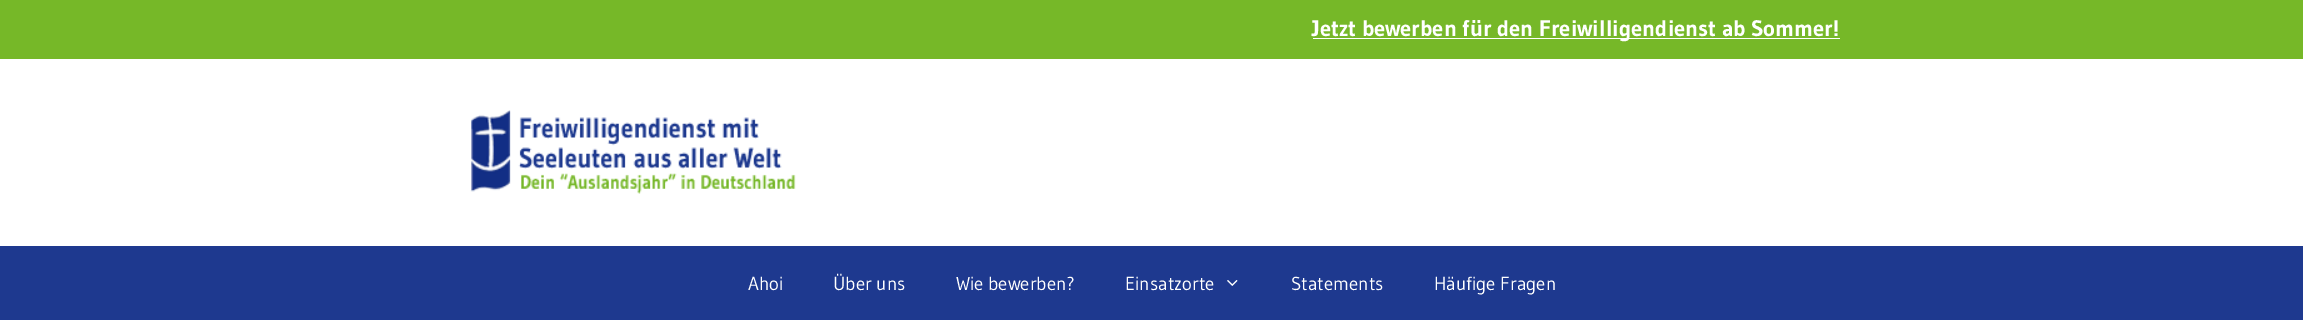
%!PS
<< /PageSize [2303 320] >> setpagedevice
/picture { 5 dict begin { /h /w /y /x /name } { exch def } forall
  gsave x y translate w h scale
  w h 8 [w 0 0 h 0 0] name (r) file false 3 colorimage grestore end } def
0 320 translate 1 -1 scale
4 setmiterlimit
1 setgray
0 0 2303 320 rectfill
0.463 0.722 0.157 setrgbcolor
0 0 2303 59 rectfill
1 setgray
1313 38 527 1 rectfill
/Gudea-Bold [22.5 0 0 -22.5 0 0] selectfont
1312 36 moveto (Jetzt bewerben für den Freiwilligendienst ab Sommer!) show
(img1.rgb) 470 110 326 84 picture
0.118 0.224 0.561 setrgbcolor
0 246 2303 74 rectfill
/Gudea-Regular [18.75 0 0 -18.75 0 0] selectfont
1 setgray
748 290 moveto (Ahoi) show
833 290 moveto (Über uns) show
956 290 moveto (Wie bewerben?) show
1125 290 moveto (Einsatzorte) show
(img2.rgb) 1227 280 11 6 picture
1291 290 moveto (Statements) show
1434 290 moveto (Häufige Fragen) show
showpage
